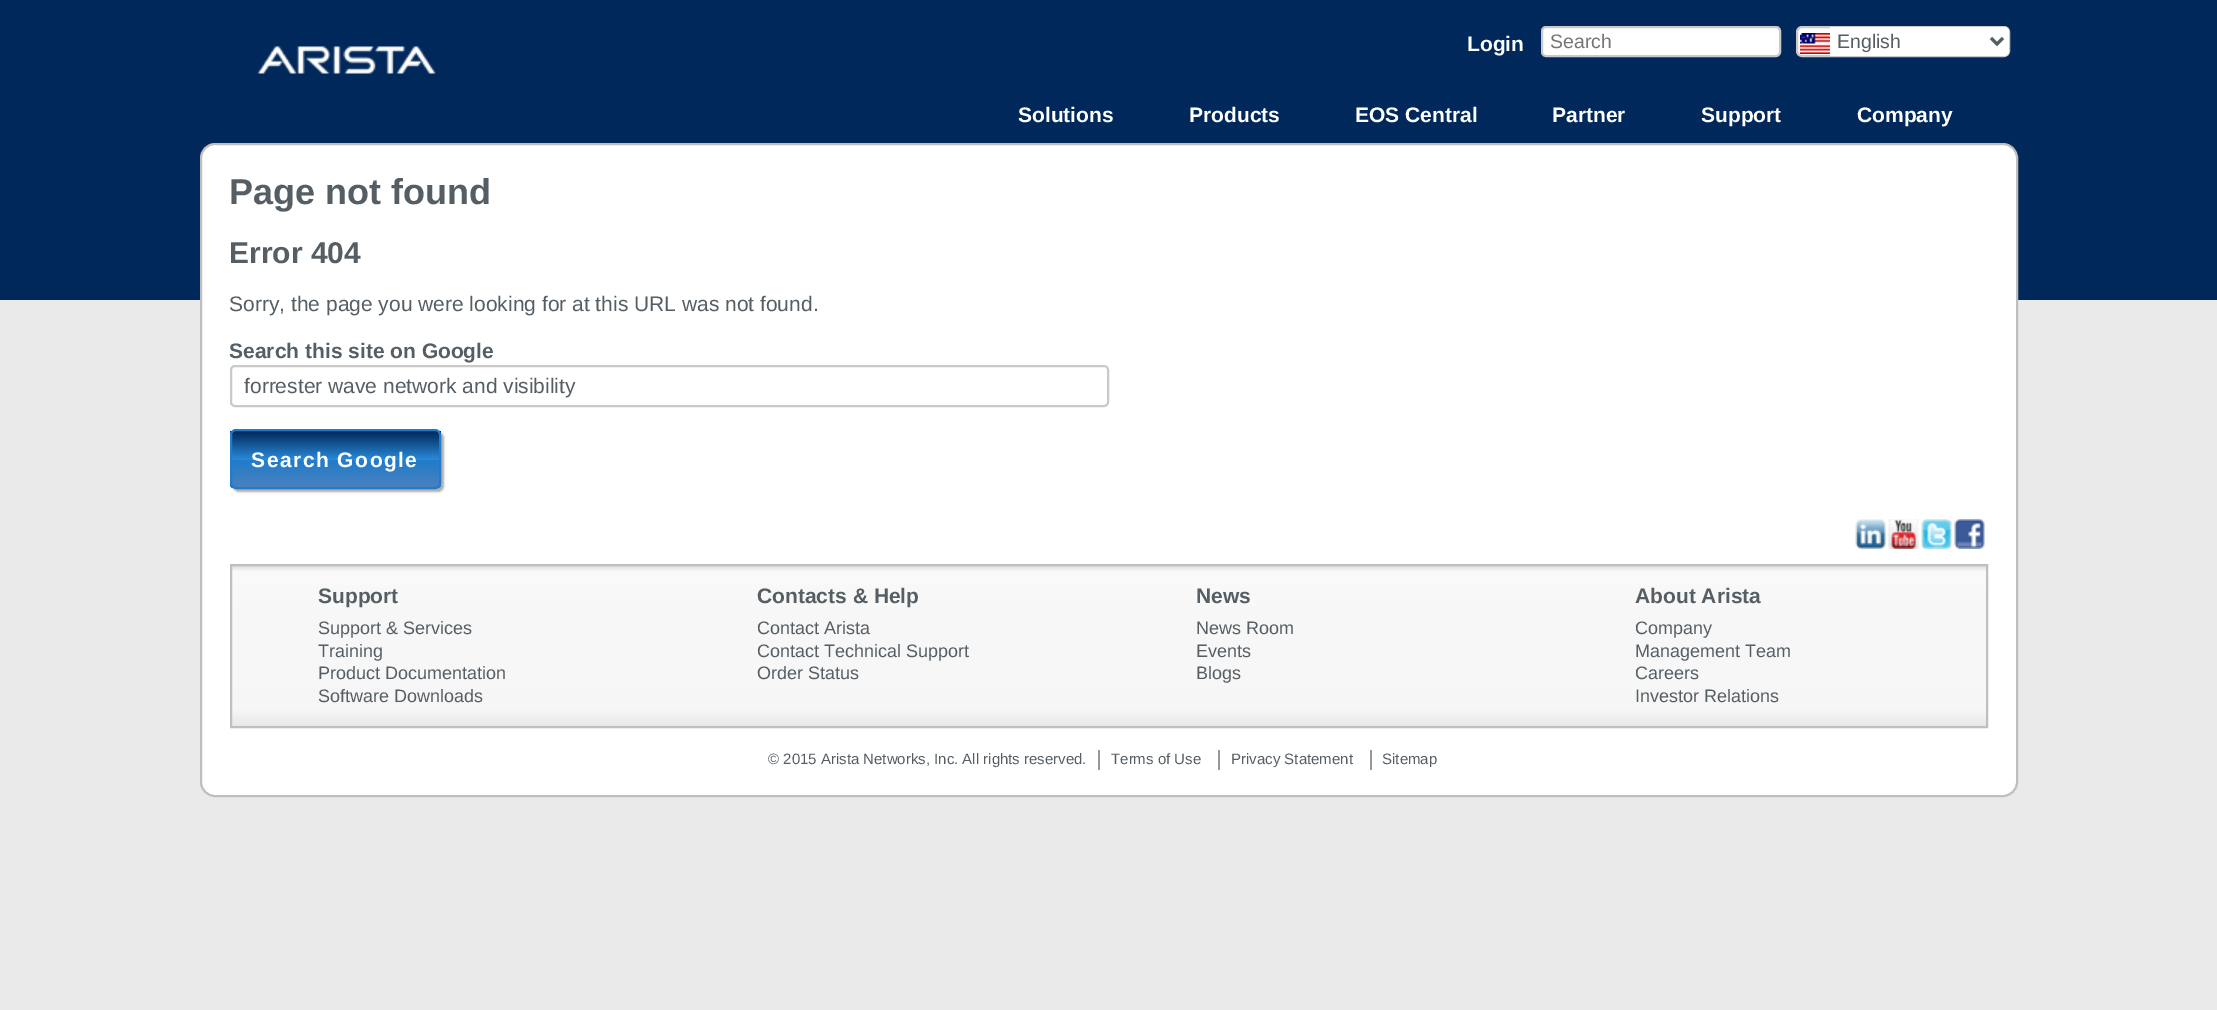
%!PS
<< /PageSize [2217 1010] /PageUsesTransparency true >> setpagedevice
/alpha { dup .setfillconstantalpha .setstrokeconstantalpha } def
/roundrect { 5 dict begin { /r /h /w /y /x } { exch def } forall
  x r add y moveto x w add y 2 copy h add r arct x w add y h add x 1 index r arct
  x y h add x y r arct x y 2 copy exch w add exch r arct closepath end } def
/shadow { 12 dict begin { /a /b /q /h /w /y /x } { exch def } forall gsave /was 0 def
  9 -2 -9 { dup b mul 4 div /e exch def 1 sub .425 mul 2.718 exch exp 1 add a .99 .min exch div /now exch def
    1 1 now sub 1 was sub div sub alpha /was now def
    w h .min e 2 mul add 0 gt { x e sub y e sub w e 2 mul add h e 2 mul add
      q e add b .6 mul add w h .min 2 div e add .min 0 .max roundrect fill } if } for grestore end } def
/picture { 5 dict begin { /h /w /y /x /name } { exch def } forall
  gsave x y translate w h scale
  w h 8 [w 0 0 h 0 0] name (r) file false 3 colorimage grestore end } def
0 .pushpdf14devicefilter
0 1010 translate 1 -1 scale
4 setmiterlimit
0.918 setgray
0 0 2217 1010 rectfill
0 0.157 0.353 setrgbcolor
0 0 2217 300 rectfill
(img1.rgb) 257 46 179 28 picture
/LiberationSans-Bold [21 0 0 -21 0 0] selectfont
1 setgray
1467 51 moveto (Login) show
1542 27 238 29 4 roundrect gsave fill grestore
0.788 setgray
2 setlinewidth
stroke
/LiberationSans-Regular [19.5 0 0 -19.5 0 0] selectfont
0.459 setgray
1550 48 moveto (Search) show
1 setgray
1797 27 212 29 5 roundrect gsave fill grestore
0.788 setgray
stroke
(img2.rgb) 1800 33 30 21 picture
1 setgray
newpath 1830 27 moveto 2004 27 lineto 2007 27 2009 29 2009 32 curveto 2009 51 lineto 2009 54 2007 56 2004 56 curveto 1830 56 lineto closepath fill
0.333 0.369 0.392 setrgbcolor
3 setlinewidth
newpath 1991 38 moveto 1997 44 lineto 2003 38 lineto stroke
1837 48 moveto (English) show
/LiberationSans-Bold [21 0 0 -21 0 0] selectfont
1 setgray
1018 122 moveto (Solutions) show
1189 122 moveto (Products) show
1355 122 moveto (EOS Central) show
1552 122 moveto (Partner) show
1701 122 moveto (Support) show
1857 122 moveto (Company) show
201 144 1816 652 14 roundrect gsave fill grestore
0.749 setgray
2 setlinewidth
stroke
/LiberationSans-Bold [36 0 0 -36 0 0] selectfont
0.333 0.369 0.392 setrgbcolor
229 204 moveto (Page not found) show
/LiberationSans-Bold [30 0 0 -30 0 0] selectfont
229 263 moveto (Error 404) show
/LiberationSans-Regular [21 0 0 -21 0 0] selectfont
229 311 moveto (Sorry, the page you were looking for at this URL was not found.) show
/LiberationSans-Bold [21 0 0 -21 0 0] selectfont
229 358 moveto (Search this site on Google) show
0.788 setgray
231 366 877 40 4 roundrect stroke
/LiberationSans-Regular [21 0 0 -21 0 0] selectfont
0.333 0.369 0.392 setrgbcolor
244 393 moveto (forrester wave network and visibility) show
0.196 setgray
233 432 211 60 6 1 0.4 shadow
gsave
230 429 211 60 6 roundrect clip newpath
gsave newpath 230 431 moveto 441 431 lineto 441 488 lineto 230 488 lineto closepath clip newpath
<< /ShadingType 2 /ColorSpace /DeviceRGB /Coords [335 431 335 488] /Extend [true true] /Function << /FunctionType 3 /Domain [0 1] /Functions [<< /FunctionType 2 /Domain [0 1] /C0 [0 0.157 0.349] /C1 [0.161 0.537 0.847] /N 1 >> << /FunctionType 2 /Domain [0 1] /C0 [0.161 0.537 0.847] /C1 [0.125 0.486 0.792] /N 1 >> << /FunctionType 2 /Domain [0 1] /C0 [0.125 0.486 0.792] /C1 [0.294 0.506 0.745] /N 1 >>] /Bounds [0.5 0.51] /Encode [0 1 0 1 0 1] >> >> shfill grestore
grestore
0.125 0.486 0.792 setrgbcolor
231 430 209 58 5 roundrect stroke
/LiberationSans-Bold [21 0 0 -21 0 0] selectfont
1 setgray
251 467 moveto 1.5 0 (Search Google) ashow
(img3.rgb) 1855 519 31 30 picture
(img4.rgb) 1888 519 31 30 picture
(img5.rgb) 1921 519 31 30 picture
(img6.rgb) 1954 519 31 30 picture
gsave newpath 232 566 moveto 1986 566 lineto 1986 726 lineto 232 726 lineto closepath clip newpath
<< /ShadingType 2 /ColorSpace /DeviceRGB /Coords [1109 565 1109 726] /Extend [true true] /Function << /FunctionType 3 /Domain [0 1] /Functions [<< /FunctionType 2 /Domain [0 1] /C0 [0.851 0.851 0.851] /C1 [0.976 0.976 0.976] /N 1 >> << /FunctionType 2 /Domain [0 1] /C0 [0.976 0.976 0.976] /C1 [0.965 0.965 0.965] /N 1 >> << /FunctionType 2 /Domain [0 1] /C0 [0.965 0.965 0.965] /C1 [0.91 0.91 0.91] /N 1 >>] /Bounds [0.04 0.9] /Encode [0 1 0 1 0 1] >> >> shfill grestore
0.749 setgray
231 565 1756 162 rectstroke
0.333 0.369 0.392 setrgbcolor
318 603 moveto (Support) show
/LiberationSans-Regular [18 0 0 -18 0 0] selectfont
318 634 moveto (Support & Services) show
318 657 moveto (Training) show
318 679 moveto (Product Documentation) show
318 702 moveto (Software Downloads) show
/LiberationSans-Bold [21 0 0 -21 0 0] selectfont
757 603 moveto (Contacts & Help) show
/LiberationSans-Regular [18 0 0 -18 0 0] selectfont
757 634 moveto (Contact Arista) show
757 657 moveto (Contact Technical Support) show
757 679 moveto (Order Status) show
/LiberationSans-Bold [21 0 0 -21 0 0] selectfont
1196 603 moveto (News) show
/LiberationSans-Regular [18 0 0 -18 0 0] selectfont
1196 634 moveto (News Room) show
1196 657 moveto (Events) show
1196 679 moveto (Blogs) show
/LiberationSans-Bold [21 0 0 -21 0 0] selectfont
1635 603 moveto (About Arista) show
/LiberationSans-Regular [18 0 0 -18 0 0] selectfont
1635 634 moveto (Company) show
1635 657 moveto (Management Team) show
1635 679 moveto (Careers) show
1635 702 moveto (Investor Relations) show
/LiberationSans-Regular [15 0 0 -15 0 0] selectfont
768 764 moveto (© 2015 Arista Networks, Inc. All rights reserved.) show
0.6 setgray
1098 750 2 20 rectfill
0.333 0.369 0.392 setrgbcolor
1111 764 moveto (Terms of Use) show
0.6 setgray
1218 750 2 20 rectfill
0.333 0.369 0.392 setrgbcolor
1231 764 moveto (Privacy Statement) show
0.6 setgray
1370 750 2 20 rectfill
0.333 0.369 0.392 setrgbcolor
1382 764 moveto (Sitemap) show
.poppdf14devicefilter showpage
